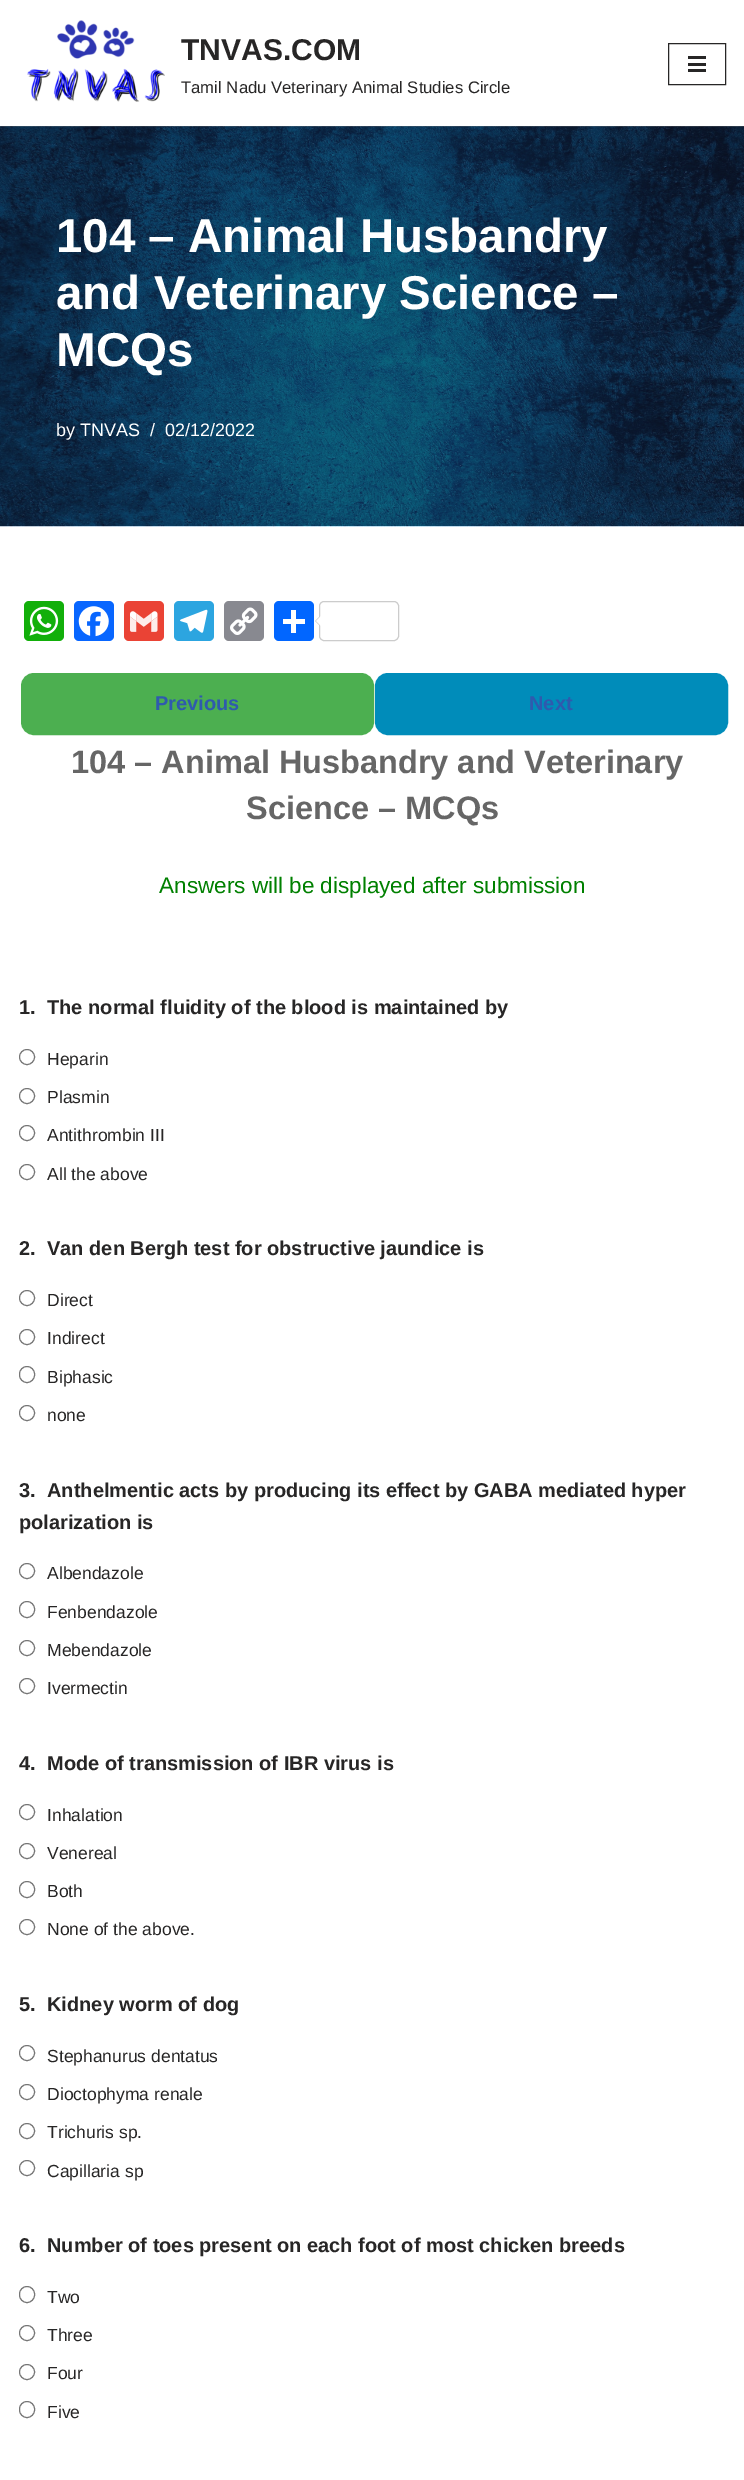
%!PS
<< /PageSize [744 2480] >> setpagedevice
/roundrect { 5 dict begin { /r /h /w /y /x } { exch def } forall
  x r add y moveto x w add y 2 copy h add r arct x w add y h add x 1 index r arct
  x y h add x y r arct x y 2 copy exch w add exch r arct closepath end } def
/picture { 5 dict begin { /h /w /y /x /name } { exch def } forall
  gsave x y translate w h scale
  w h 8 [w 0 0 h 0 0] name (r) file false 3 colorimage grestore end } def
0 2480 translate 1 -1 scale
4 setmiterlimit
1 setgray
0 0 744 2480 rectfill
(img1.rgb) 27 20 138 82 picture
/LiberationSans-Bold [30 0 0 -30 0 0] selectfont
0.153 0.149 0.149 setrgbcolor
181 60 moveto (TNVAS.COM) show
/LiberationSans-Regular [16.7 0 0 -16.7 0 0] selectfont
181 93 moveto (Tamil Nadu Veterinary Animal Studies Circle) show
668.5 43.5 57 41 rectstroke
688 56 18 3 rectfill
688 63 18 3 rectfill
688 69 18 3 rectfill
(img2.rgb) 0 126 744 401 picture
/LiberationSans-Bold [47.5 0 0 -47.5 0 0] selectfont
1 setgray
56 252 moveto (104 – Animal Husbandry) show
56 309 moveto (and Veterinary Science –) show
56 366 moveto (MCQs) show
/LiberationSans-Regular [18 0 0 -18 0 0] selectfont
56 436 moveto (by TNVAS) show
150 436 moveto (/) show
165 436 moveto (02/12/2022) show
0.071 0.686 0.039 setrgbcolor
24 601 40 40 5 roundrect fill
(img3.rgb) 29 606 30 30 picture
0.031 0.4 1 setrgbcolor
74 601 40 40 5 roundrect fill
(img4.rgb) 78 606 31 31 picture
0.918 0.263 0.208 setrgbcolor
124 601 40 40 5 roundrect fill
(img5.rgb) 130 611 28 21 picture
0.173 0.647 0.878 setrgbcolor
174 601 40 40 5 roundrect fill
(img6.rgb) 180 609 28 24 picture
0.533 0.537 0.565 setrgbcolor
224 601 40 40 5 roundrect fill
(img7.rgb) 230 607 28 28 picture
0.004 0.4 1 setrgbcolor
274 601 40 40 5 roundrect fill
1 setgray
291 610 5 23 rectfill
283 619 22 5 rectfill
0.8 setgray
319.5 601.5 79 39 4.5 roundrect stroke
newpath 320 616 moveto 320 626 lineto 315 621 lineto closepath fill
1 setgray
newpath 321 616 moveto 321 626 lineto 316 621 lineto closepath fill
0.298 0.686 0.314 setrgbcolor
22.5 674.5 350 59 11.5 roundrect gsave fill grestore
3 setlinewidth
stroke
/LiberationSans-Bold [20 0 0 -20 0 0] selectfont
0.184 0.353 0.682 setrgbcolor
155 710 moveto (Previous) show
0 0.549 0.729 setrgbcolor
376.5 674.5 350 59 11.5 roundrect gsave fill grestore
stroke
0.184 0.353 0.682 setrgbcolor
529 710 moveto (Next) show
/LiberationSans-Bold [32.5 0 0 -32.5 0 0] selectfont
0.4 setgray
71 773 moveto (104 – Animal Husbandry and Veterinary) show
246 819 moveto (Science – MCQs) show
/LiberationSans-Regular [22.5 0 0 -22.5 0 0] selectfont
0 0.502 0 setrgbcolor
159 893 moveto (Answers will be displayed after submission) show
/LiberationSans-Bold [20 0 0 -20 0 0] selectfont
0.153 0.149 0.149 setrgbcolor
19 1014 moveto (1.) show
47 1014 moveto (The normal fluidity of the blood is maintained by) show
0.463 setgray
1 setlinewidth
newpath 27 1057 7.5 0 360 arc closepath stroke
/LiberationSans-Regular [17.5 0 0 -17.5 0 0] selectfont
0.153 0.149 0.149 setrgbcolor
47 1065 moveto (Heparin) show
0.463 setgray
newpath 27 1096 7.5 0 360 arc closepath stroke
0.153 0.149 0.149 setrgbcolor
47 1103 moveto (Plasmin) show
0.463 setgray
newpath 27 1133 7.5 0 360 arc closepath stroke
0.153 0.149 0.149 setrgbcolor
47 1141 moveto (Antithrombin III) show
0.463 setgray
newpath 27 1172 7.5 0 360 arc closepath stroke
0.153 0.149 0.149 setrgbcolor
47 1180 moveto (All the above) show
/LiberationSans-Bold [20 0 0 -20 0 0] selectfont
19 1255 moveto (2.) show
47 1255 moveto (Van den Bergh test for obstructive jaundice is) show
0.463 setgray
newpath 27 1298 7.5 0 360 arc closepath stroke
/LiberationSans-Regular [17.5 0 0 -17.5 0 0] selectfont
0.153 0.149 0.149 setrgbcolor
47 1306 moveto (Direct) show
0.463 setgray
newpath 27 1337 7.5 0 360 arc closepath stroke
0.153 0.149 0.149 setrgbcolor
47 1344 moveto (Indirect) show
0.463 setgray
19.5 1366.5 15 16 7.5 roundrect stroke
0.153 0.149 0.149 setrgbcolor
47 1383 moveto (Biphasic) show
0.463 setgray
newpath 27 1413 7.5 0 360 arc closepath stroke
0.153 0.149 0.149 setrgbcolor
47 1421 moveto (none) show
/LiberationSans-Bold [20 0 0 -20 0 0] selectfont
19 1497 moveto (3.) show
47 1497 moveto (Anthelmentic acts by producing its effect by GABA mediated hyper) show
19 1529 moveto (polarization is) show
0.463 setgray
newpath 27 1571 7.5 0 360 arc closepath stroke
/LiberationSans-Regular [17.5 0 0 -17.5 0 0] selectfont
0.153 0.149 0.149 setrgbcolor
47 1579 moveto (Albendazole) show
0.463 setgray
19.5 1601.5 15 16 7.5 roundrect stroke
0.153 0.149 0.149 setrgbcolor
47 1618 moveto (Fenbendazole) show
0.463 setgray
newpath 27 1648 7.5 0 360 arc closepath stroke
0.153 0.149 0.149 setrgbcolor
47 1656 moveto (Mebendazole) show
0.463 setgray
newpath 27 1686 7.5 0 360 arc closepath stroke
0.153 0.149 0.149 setrgbcolor
47 1694 moveto (Ivermectin) show
/LiberationSans-Bold [20 0 0 -20 0 0] selectfont
19 1770 moveto (4.) show
47 1770 moveto (Mode of transmission of IBR virus is) show
0.463 setgray
newpath 27 1812 7.5 0 360 arc closepath stroke
/LiberationSans-Regular [17.5 0 0 -17.5 0 0] selectfont
0.153 0.149 0.149 setrgbcolor
47 1821 moveto (Inhalation) show
0.463 setgray
newpath 27 1851 7.5 0 360 arc closepath stroke
0.153 0.149 0.149 setrgbcolor
47 1859 moveto (Venereal) show
0.463 setgray
19.5 1881.5 15 16 7.5 roundrect stroke
0.153 0.149 0.149 setrgbcolor
47 1897 moveto (Both) show
0.463 setgray
newpath 27 1927 7.5 0 360 arc closepath stroke
0.153 0.149 0.149 setrgbcolor
47 1935 moveto (None of the above.) show
/LiberationSans-Bold [20 0 0 -20 0 0] selectfont
19 2011 moveto (5.) show
47 2011 moveto (Kidney worm of dog) show
0.463 setgray
newpath 27 2053 7.5 0 360 arc closepath stroke
/LiberationSans-Regular [17.5 0 0 -17.5 0 0] selectfont
0.153 0.149 0.149 setrgbcolor
47 2062 moveto (Stephanurus dentatus) show
0.463 setgray
newpath 27 2092 7.5 0 360 arc closepath stroke
0.153 0.149 0.149 setrgbcolor
47 2100 moveto (Dioctophyma renale) show
0.463 setgray
newpath 27 2131 7.5 0 360 arc closepath stroke
0.153 0.149 0.149 setrgbcolor
47 2138 moveto (Trichuris sp.) show
0.463 setgray
newpath 27 2168 7.5 0 360 arc closepath stroke
0.153 0.149 0.149 setrgbcolor
47 2177 moveto (Capillaria sp) show
/LiberationSans-Bold [20 0 0 -20 0 0] selectfont
19 2252 moveto (6.) show
47 2252 moveto (Number of toes present on each foot of most chicken breeds) show
0.463 setgray
19.5 2286.5 15 16 7.5 roundrect stroke
/LiberationSans-Regular [17.5 0 0 -17.5 0 0] selectfont
0.153 0.149 0.149 setrgbcolor
47 2303 moveto (Two) show
0.463 setgray
newpath 27 2333 7.5 0 360 arc closepath stroke
0.153 0.149 0.149 setrgbcolor
47 2341 moveto (Three) show
0.463 setgray
newpath 27 2372 7.5 0 360 arc closepath stroke
0.153 0.149 0.149 setrgbcolor
47 2379 moveto (Four) show
0.463 setgray
19.5 2401.5 15 16 7.5 roundrect stroke
0.153 0.149 0.149 setrgbcolor
47 2418 moveto (Five) show
showpage
